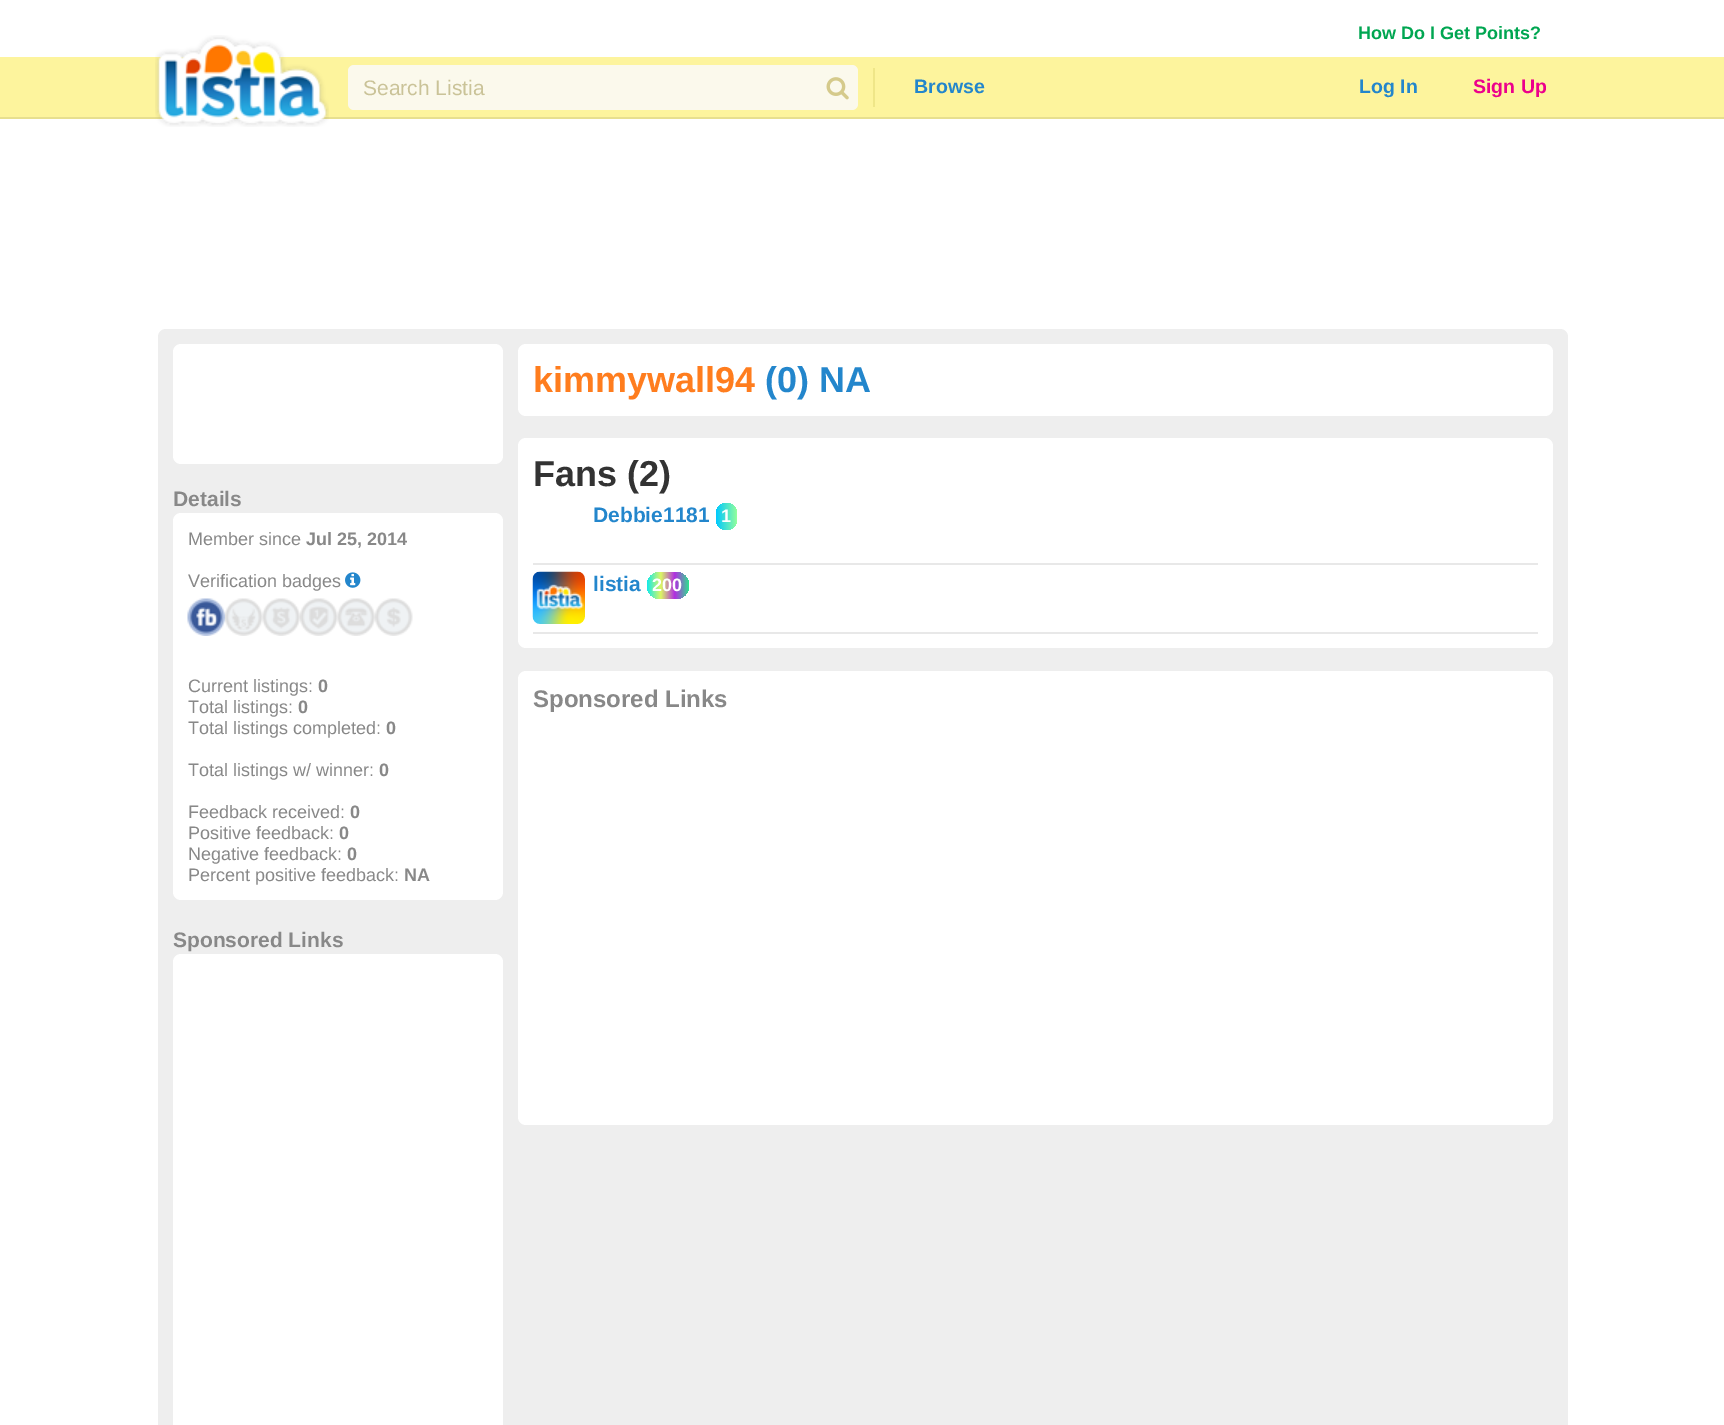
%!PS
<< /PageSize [1724 1425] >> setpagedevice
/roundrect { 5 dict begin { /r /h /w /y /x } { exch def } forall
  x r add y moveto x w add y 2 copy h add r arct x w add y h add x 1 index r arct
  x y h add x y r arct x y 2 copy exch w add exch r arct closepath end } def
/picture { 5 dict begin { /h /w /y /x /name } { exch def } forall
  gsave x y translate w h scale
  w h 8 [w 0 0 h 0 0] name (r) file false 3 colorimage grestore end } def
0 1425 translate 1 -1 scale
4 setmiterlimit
1 setgray
0 0 1724 1425 rectfill
/LiberationSans-Bold [18 0 0 -18 0 0] selectfont
0 0.651 0.318 setrgbcolor
1358 39 moveto (How Do I Get Points?) show
0.992 0.957 0.616 setrgbcolor
0 57 1724 60 rectfill
0.906 0.875 0.561 setrgbcolor
0 117 1724 2 rectfill
(img1.rgb) 155 35 174 92 picture
0.984 0.976 0.925 setrgbcolor
348 65 510 45 6 roundrect fill
/LiberationSans-Regular [21 0 0 -21 0 0] selectfont
0.792 0.765 0.596 setrgbcolor
363 95 moveto (Search Listia) show
(img2.rgb) 826 77 23 23 picture
0.937 0.902 0.533 setrgbcolor
873 68 2 39 rectfill
/LiberationSans-Bold [19.5 0 0 -19.5 0 0] selectfont
0.137 0.525 0.8 setrgbcolor
914 93 moveto (Browse) show
1359 93 moveto (Log In) show
0.925 0 0.549 setrgbcolor
1473 93 moveto (Sign Up) show
0.933 setgray
158 329 1410 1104 8 roundrect fill
1 setgray
173 344 330 120 8 roundrect fill
/LiberationSans-Bold [21 0 0 -21 0 0] selectfont
0.533 setgray
173 506 moveto (Details) show
1 setgray
173 513 330 387 8 roundrect fill
/LiberationSans-Regular [18 0 0 -18 0 0] selectfont
0.533 setgray
188 545 moveto (Member since) show
/LiberationSans-Bold [18 0 0 -18 0 0] selectfont
306 545 moveto (Jul 25, 2014) show
/LiberationSans-Regular [18 0 0 -18 0 0] selectfont
188 587 moveto (Verification badges) show
(img3.rgb) 345 572 16 16 picture
(img4.rgb) 187 598 38 38 picture
(img5.rgb) 225 598 38 38 picture
(img6.rgb) 262 598 38 38 picture
(img7.rgb) 300 598 38 38 picture
(img8.rgb) 337 598 38 38 picture
(img9.rgb) 375 598 38 38 picture
188 692 moveto (Current listings:) show
/LiberationSans-Bold [18 0 0 -18 0 0] selectfont
318 692 moveto (0) show
/LiberationSans-Regular [18 0 0 -18 0 0] selectfont
188 713 moveto (Total listings:) show
/LiberationSans-Bold [18 0 0 -18 0 0] selectfont
298 713 moveto (0) show
/LiberationSans-Regular [18 0 0 -18 0 0] selectfont
188 734 moveto (Total listings completed:) show
/LiberationSans-Bold [18 0 0 -18 0 0] selectfont
386 734 moveto (0) show
/LiberationSans-Regular [18 0 0 -18 0 0] selectfont
188 776 moveto (Total listings w/ winner:) show
/LiberationSans-Bold [18 0 0 -18 0 0] selectfont
379 776 moveto (0) show
/LiberationSans-Regular [18 0 0 -18 0 0] selectfont
188 818 moveto (Feedback received:) show
/LiberationSans-Bold [18 0 0 -18 0 0] selectfont
350 818 moveto (0) show
/LiberationSans-Regular [18 0 0 -18 0 0] selectfont
188 839 moveto (Positive feedback:) show
/LiberationSans-Bold [18 0 0 -18 0 0] selectfont
339 839 moveto (0) show
/LiberationSans-Regular [18 0 0 -18 0 0] selectfont
188 860 moveto (Negative feedback:) show
/LiberationSans-Bold [18 0 0 -18 0 0] selectfont
347 860 moveto (0) show
/LiberationSans-Regular [18 0 0 -18 0 0] selectfont
188 881 moveto (Percent positive feedback:) show
/LiberationSans-Bold [18 0 0 -18 0 0] selectfont
404 881 moveto (NA) show
/LiberationSans-Bold [21 0 0 -21 0 0] selectfont
173 947 moveto (Sponsored Links) show
1 setgray
173 954 330 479 8 roundrect fill
518 344 1035 72 8 roundrect fill
/LiberationSans-Bold [36 0 0 -36 0 0] selectfont
1 0.49 0.118 setrgbcolor
533 392 moveto (kimmywall94) show
0.137 0.525 0.8 setrgbcolor
765 392 moveto (\(0\) NA) show
1 setgray
518 438 1035 210 8 roundrect fill
0.2 setgray
533 486 moveto (Fans \(2\)) show
0.91 setgray
533 563 1005 2 rectfill
/LiberationSans-Bold [21 0 0 -21 0 0] selectfont
0.137 0.525 0.8 setrgbcolor
593 522 moveto (Debbie1181) show
gsave 716 503 21 27 10.5 roundrect clip newpath
<< /ShadingType 2 /ColorSpace /DeviceRGB /Coords [716 516 737 516] /Extend [true true] /Function << /FunctionType 2 /Domain [0 1] /C0 [0 0.788 1] /C1 [0.573 0.996 0.616] /N 1 >> >> shfill grestore
/LiberationSans-Bold [18 0 0 -18 0 0] selectfont
1 setgray
721 522 moveto (1) show
0.91 setgray
533 632 1005 2 rectfill
(img10.rgb) 532 571 53 53 picture
/LiberationSans-Bold [21 0 0 -21 0 0] selectfont
0.137 0.525 0.8 setrgbcolor
593 591 moveto (listia) show
gsave 647 572 42 27 13.5 roundrect clip newpath
<< /ShadingType 2 /ColorSpace /DeviceRGB /Coords [647 585 689 585] /Extend [true true] /Function << /FunctionType 3 /Domain [0 1] /Functions [<< /FunctionType 2 /Domain [0 1] /C0 [0.071 0.918 0.918] /C1 [0.863 0.969 0.388] /N 1 >> << /FunctionType 2 /Domain [0 1] /C0 [0.863 0.969 0.388] /C1 [0.694 0.18 0.882] /N 1 >> << /FunctionType 2 /Domain [0 1] /C0 [0.694 0.18 0.882] /C1 [0.18 0.882 0.561] /N 1 >>] /Bounds [0.33 0.66] /Encode [0 1 0 1 0 1] >> >> shfill grestore
/LiberationSans-Bold [18 0 0 -18 0 0] selectfont
1 setgray
652 591 moveto (200) show
518 671 1035 454 8 roundrect fill
/LiberationSans-Bold [24 0 0 -24 0 0] selectfont
0.533 setgray
533 707 moveto (Sponsored Links) show
showpage
